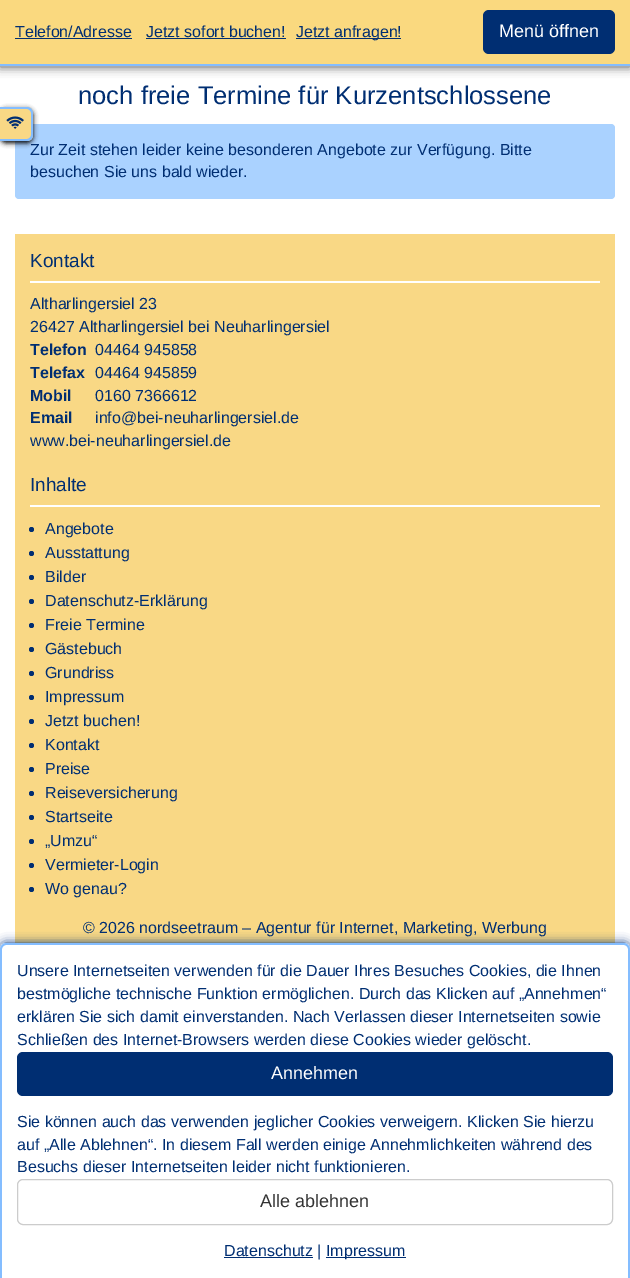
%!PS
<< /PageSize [630 1278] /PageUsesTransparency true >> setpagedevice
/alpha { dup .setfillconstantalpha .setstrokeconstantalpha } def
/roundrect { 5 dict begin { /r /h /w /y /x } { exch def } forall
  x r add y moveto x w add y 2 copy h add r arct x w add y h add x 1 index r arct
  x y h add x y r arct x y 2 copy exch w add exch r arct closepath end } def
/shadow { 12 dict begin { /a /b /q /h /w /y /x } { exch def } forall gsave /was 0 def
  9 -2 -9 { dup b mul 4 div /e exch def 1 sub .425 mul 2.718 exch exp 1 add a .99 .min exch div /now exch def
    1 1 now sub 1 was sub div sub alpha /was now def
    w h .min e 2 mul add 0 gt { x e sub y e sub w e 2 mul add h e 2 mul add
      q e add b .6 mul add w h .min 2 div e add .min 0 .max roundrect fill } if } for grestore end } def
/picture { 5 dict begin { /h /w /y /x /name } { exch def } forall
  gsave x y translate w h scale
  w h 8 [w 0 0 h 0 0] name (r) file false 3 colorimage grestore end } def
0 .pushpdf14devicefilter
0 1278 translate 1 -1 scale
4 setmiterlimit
1 setgray
0 0 630 1278 rectfill
0.333 setgray
0 1 630 66 0 5 1 shadow
0.98 0.851 0.498 setrgbcolor
0 0 630 64 rectfill
0.518 0.741 1 setrgbcolor
0 64 630 2 rectfill
/LiberationSans-Regular [16 0 0 -16 0 0] selectfont
0 0.18 0.447 setrgbcolor
15 37 moveto (Telefon/Adresse) show
15 38 117 1 rectfill
146 37 moveto (Jetzt sofort buchen!) show
146 38 140 1 rectfill
296 38 105 1 rectfill
296 37 moveto (Jetzt anfragen!) show
483 10 132 44 6 roundrect fill
/LiberationSans-Regular [18 0 0 -18 0 0] selectfont
1 setgray
499 37 moveto (Menü öffnen) show
/LiberationSans-Regular [25.6 0 0 -25.6 0 0] selectfont
0 0.18 0.447 setrgbcolor
78 104 moveto (noch freie Termine für Kurzentschlossene) show
0.667 0.824 1 setrgbcolor
15 124 600 75 4 roundrect fill
/LiberationSans-Regular [16 0 0 -16 0 0] selectfont
0 0.18 0.447 setrgbcolor
30 155 moveto (Zur Zeit stehen leider keine besonderen Angebote zur Verfügung. Bitte) show
30 177 moveto (besuchen Sie uns bald wieder.) show
0.976 0.847 0.522 setrgbcolor
15 234 600 709 rectfill
1 setgray
30 281 570 2 rectfill
/LiberationSans-Regular [19 0 0 -19 0 0] selectfont
0 0.18 0.447 setrgbcolor
30 267 moveto (Kontakt) show
/LiberationSans-Regular [16 0 0 -16 0 0] selectfont
30 309 moveto (Altharlingersiel 23) show
30 332 moveto (26427 Altharlingersiel bei Neuharlingersiel) show
/LiberationSans-Bold [16 0 0 -16 0 0] selectfont
30 355 moveto (Telefon) show
/LiberationSans-Regular [16 0 0 -16 0 0] selectfont
95 355 moveto (04464 945858) show
/LiberationSans-Bold [16 0 0 -16 0 0] selectfont
30 378 moveto (Telefax) show
/LiberationSans-Regular [16 0 0 -16 0 0] selectfont
95 378 moveto (04464 945859) show
/LiberationSans-Bold [16 0 0 -16 0 0] selectfont
30 401 moveto (Mobil) show
/LiberationSans-Regular [16 0 0 -16 0 0] selectfont
95 401 moveto (0160 7366612) show
/LiberationSans-Bold [16 0 0 -16 0 0] selectfont
30 423 moveto (Email) show
/LiberationSans-Regular [16 0 0 -16 0 0] selectfont
95 423 moveto (info@bei-neuharlingersiel.de) show
30 446 moveto (www.bei-neuharlingersiel.de) show
1 setgray
30 505 570 2 rectfill
/LiberationSans-Regular [19 0 0 -19 0 0] selectfont
0 0.18 0.447 setrgbcolor
30 491 moveto (Inhalte) show
newpath 31.5 529.5 2.5 0 360 arc closepath fill
/LiberationSans-Regular [16 0 0 -16 0 0] selectfont
45 534 moveto (Angebote) show
newpath 31.5 553.5 2.5 0 360 arc closepath fill
45 558 moveto (Ausstattung) show
newpath 31.5 577.5 2.5 0 360 arc closepath fill
45 582 moveto (Bilder) show
newpath 31.5 601.5 2.5 0 360 arc closepath fill
45 606 moveto (Datenschutz-Erklärung) show
newpath 31.5 625.5 2.5 0 360 arc closepath fill
45 630 moveto (Freie Termine) show
newpath 31.5 649.5 2.5 0 360 arc closepath fill
45 654 moveto (Gästebuch) show
newpath 31.5 673.5 2.5 0 360 arc closepath fill
45 678 moveto (Grundriss) show
newpath 31.5 697.5 2.5 0 360 arc closepath fill
45 702 moveto (Impressum) show
newpath 31.5 721.5 2.5 0 360 arc closepath fill
45 726 moveto (Jetzt buchen!) show
newpath 31.5 745.5 2.5 0 360 arc closepath fill
45 750 moveto (Kontakt) show
newpath 31.5 769.5 2.5 0 360 arc closepath fill
45 774 moveto (Preise) show
newpath 31.5 793.5 2.5 0 360 arc closepath fill
45 798 moveto (Reiseversicherung) show
newpath 31.5 817.5 2.5 0 360 arc closepath fill
45 822 moveto (Startseite) show
newpath 31.5 841.5 2.5 0 360 arc closepath fill
45 846 moveto („Umzu“) show
newpath 31.5 865.5 2.5 0 360 arc closepath fill
45 870 moveto (Vermieter-Login) show
newpath 31.5 889.5 2.5 0 360 arc closepath fill
45 894 moveto (Wo genau?) show
83 933 moveto (© 2026 nordseetraum – Agentur für Internet, Marketing, Werbung) show
0 setgray
0 109 33 34 6 2.5 1 shadow
0.976 0.847 0.522 setrgbcolor
newpath 0 107 moveto 27 107 lineto 30.5 107 33 109.5 33 113 curveto 33 135 lineto 33 138.5 30.5 141 27 141 curveto 0 141 lineto closepath fill
0.518 0.741 1 setrgbcolor
newpath 0 107 moveto 27 107 lineto 30.5 107 33 109.5 33 113 curveto 33 135 lineto 33 138.5 30.5 141 27 141 curveto 0 141 lineto closepath 0 109 moveto 27 109 lineto 29 109 31 111 31 113 curveto 31 135 lineto 31 137 29 139 27 139 curveto 0 139 lineto closepath eofill
(img1.rgb) 6 116 18 13 picture
0 0.18 0.447 setrgbcolor
0 943 630 335 6 5 1 shadow
1 setgray
newpath 6 943 moveto 624 943 lineto 627.5 943 630 945.5 630 949 curveto 630 1278 lineto 0 1278 lineto 0 949 lineto 0 945.5 2.5 943 6 943 curveto closepath fill
0.518 0.741 1 setrgbcolor
newpath 6 943 moveto 624 943 lineto 627 943 630 946 630 949 curveto 630 1278 lineto 0 1278 lineto 0 949 lineto 0 946 3 943 6 943 curveto closepath 6 945 moveto 624 945 lineto 626 945 628 947 628 949 curveto 628 1278 lineto 2 1278 lineto 2 949 lineto 2 947 4 945 6 945 curveto closepath eofill
0 0.18 0.447 setrgbcolor
17 976 moveto (Unsere Internetseiten verwenden für die Dauer Ihres Besuches Cookies, die Ihnen) show
17 999 moveto (bestmögliche technische Funktion ermöglichen. Durch das Klicken auf „Annehmen“) show
17 1022 moveto (erklären Sie sich damit einverstanden. Nach Verlassen dieser Internetseiten sowie) show
17 1045 moveto (Schließen des Internet-Browsers werden diese Cookies wieder gelöscht.) show
17 1052 596 44 6 roundrect fill
/LiberationSans-Regular [18 0 0 -18 0 0] selectfont
1 setgray
271 1079 moveto (Annehmen) show
/LiberationSans-Regular [16 0 0 -16 0 0] selectfont
0 0.18 0.447 setrgbcolor
17 1127 moveto (Sie können auch das verwenden jeglicher Cookies verweigern. Klicken Sie hierzu) show
17 1150 moveto (auf „Alle Ablehnen“. In diesem Fall werden einige Annehmlichkeiten während des) show
17 1172 moveto (Besuchs dieser Internetseiten leider nicht funktionieren.) show
0.8 setgray
17.5 1179.5 595 45 5.5 roundrect stroke
/LiberationSans-Regular [18 0 0 -18 0 0] selectfont
0.2 setgray
260 1207 moveto (Alle ablehnen) show
0 0.18 0.447 setrgbcolor
224 1257 89 1 rectfill
/LiberationSans-Regular [16 0 0 -16 0 0] selectfont
224 1256 moveto (Datenschutz |) show
326 1257 80 1 rectfill
326 1256 moveto (Impressum) show
.poppdf14devicefilter showpage
